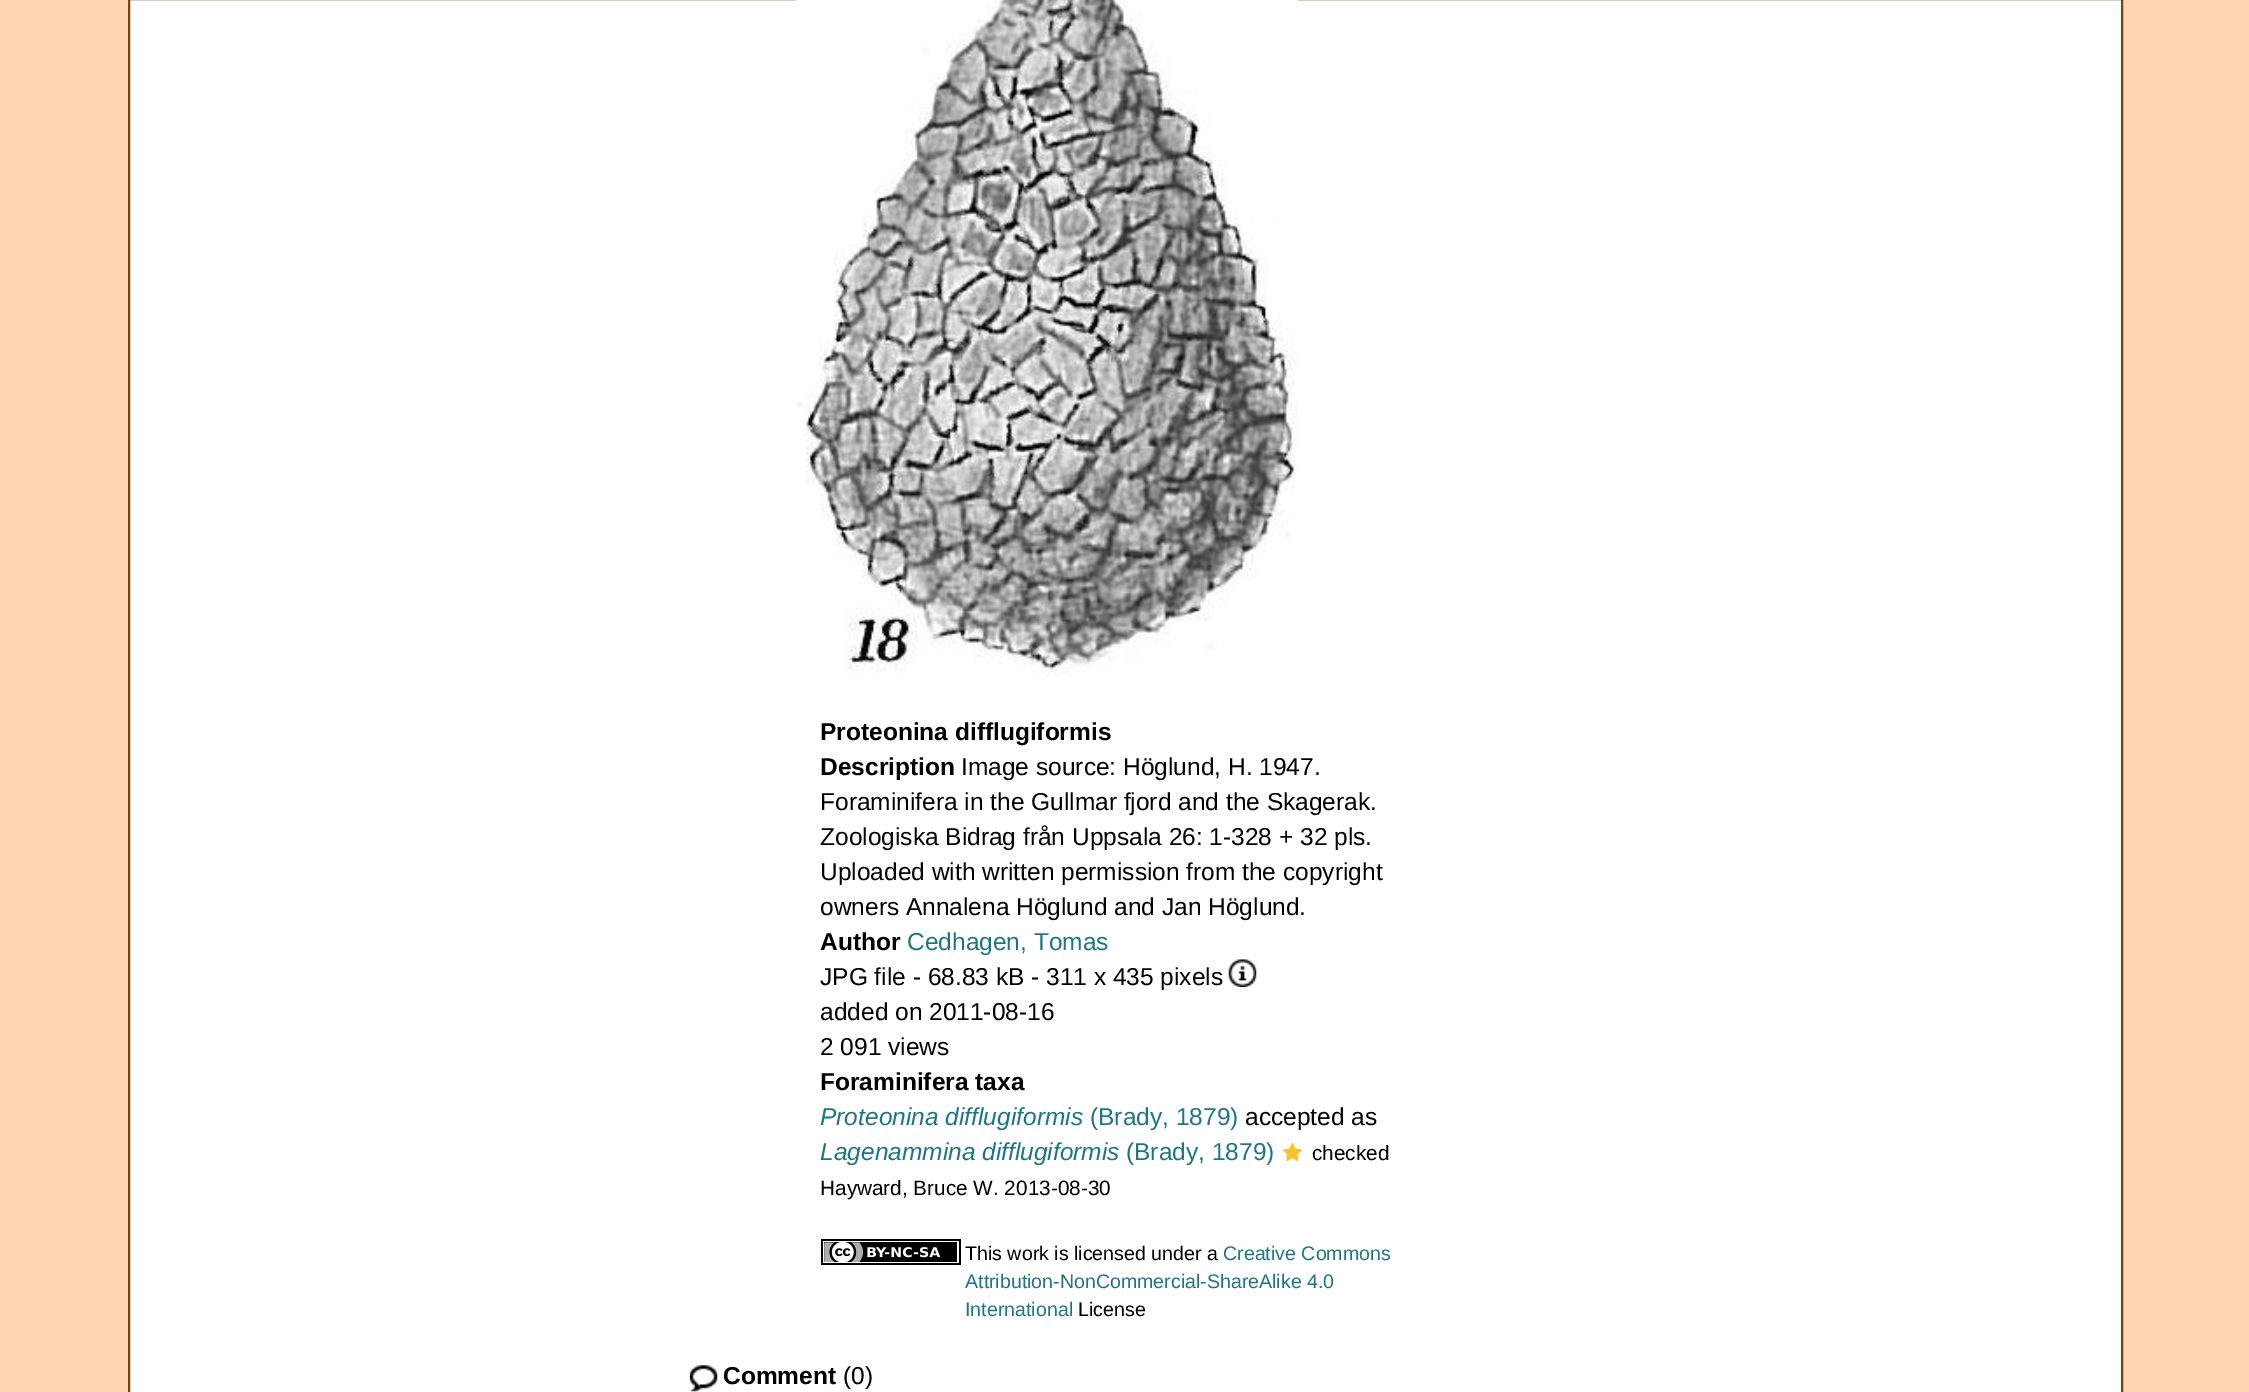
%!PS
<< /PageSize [2249 1392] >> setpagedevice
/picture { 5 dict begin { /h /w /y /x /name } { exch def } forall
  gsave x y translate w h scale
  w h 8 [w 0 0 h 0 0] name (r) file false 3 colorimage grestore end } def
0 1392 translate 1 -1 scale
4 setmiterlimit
1 0.839 0.686 setrgbcolor
0 0 2249 1392 rectfill
1 setgray
newpath 129 -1 moveto 2122 -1 lineto 2122 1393 lineto 129 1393 lineto closepath gsave fill grestore
0.459 0.263 0.075 setrgbcolor
2 setlinewidth
stroke
(img1.rgb) 796 0 502 676 picture
/LiberationSans-Bold [24.5 0 0 -24.5 0 0] selectfont
0 setgray
820 740 moveto (Proteonina difflugiformis) show
820 775 moveto (Description) show
/LiberationSans-Regular [24.5 0 0 -24.5 0 0] selectfont
961 775 moveto (Image source: Höglund, H. 1947.) show
820 810 moveto (Foraminifera in the Gullmar fjord and the Skagerak.) show
820 845 moveto (Zoologiska Bidrag från Uppsala 26: 1-328 + 32 pls.) show
820 880 moveto (Uploaded with written permission from the copyright) show
820 915 moveto (owners Annalena Höglund and Jan Höglund.) show
/LiberationSans-Bold [24.5 0 0 -24.5 0 0] selectfont
820 950 moveto (Author) show
/LiberationSans-Regular [24.5 0 0 -24.5 0 0] selectfont
0.118 0.459 0.525 setrgbcolor
907 950 moveto (Cedhagen, Tomas) show
0 setgray
820 985 moveto (JPG file - 68.83 kB - 311 x 435 pixels) show
(img2.rgb) 1228 959 29 29 picture
820 1020 moveto (added on 2011-08-16) show
820 1055 moveto (2 091 views) show
/LiberationSans-Bold [24.5 0 0 -24.5 0 0] selectfont
820 1090 moveto (Foraminifera taxa) show
/LiberationSans-Italic [24.5 0 0 -24.5 0 0] selectfont
0.118 0.459 0.525 setrgbcolor
820 1125 moveto (Proteonina difflugiformis) show
/LiberationSans-Regular [24.5 0 0 -24.5 0 0] selectfont
1090 1125 moveto (\(Brady, 1879\)) show
0 setgray
1245 1125 moveto (accepted as) show
/LiberationSans-Italic [24.5 0 0 -24.5 0 0] selectfont
0.118 0.459 0.525 setrgbcolor
820 1160 moveto (Lagenammina difflugiformis) show
/LiberationSans-Regular [24.5 0 0 -24.5 0 0] selectfont
1126 1160 moveto (\(Brady, 1879\)) show
(img3.rgb) 1282 1142 20 20 picture
/LiberationSans-Regular [20.75 0 0 -20.75 0 0] selectfont
0 setgray
1312 1160 moveto (checked) show
820 1195 moveto (Hayward, Bruce W. 2013-08-30) show
(img4.rgb) 821 1239 140 26 picture
/LiberationSans-Regular [19.6 0 0 -19.6 0 0] selectfont
965 1260 moveto (This work is licensed under a) show
0.118 0.459 0.525 setrgbcolor
1223 1260 moveto (Creative Commons) show
965 1288 moveto (Attribution-NonCommercial-ShareAlike 4.0) show
965 1316 moveto (International) show
0 setgray
1078 1316 moveto (License) show
(img5.rgb) 689 1364 29 28 picture
/LiberationSans-Bold [24.5 0 0 -24.5 0 0] selectfont
723 1384 moveto (Comment) show
/LiberationSans-Regular [24.5 0 0 -24.5 0 0] selectfont
843 1384 moveto (\(0\)) show
showpage
